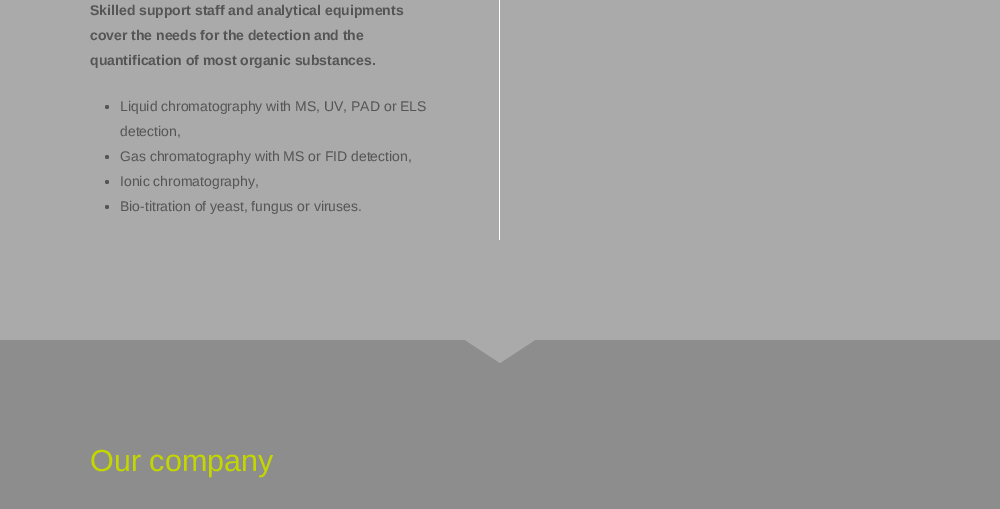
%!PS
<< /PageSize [1000 509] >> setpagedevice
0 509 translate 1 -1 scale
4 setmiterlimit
0.553 setgray
0 0 1000 509 rectfill
0.667 setgray
newpath 500 -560 moveto 480 -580 lineto 0 -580 lineto 0 340 lineto 1000 340 lineto 1000 -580 lineto 520 -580 lineto closepath fill
1 setgray
499 0 1 240 rectfill
/LiberationSans-Bold [14 0 0 -14 0 0] selectfont
0.333 setgray
90 15 moveto (Skilled support staff and analytical equipments) show
90 40 moveto (cover the needs for the detection and the) show
90 65 moveto (quantification of most organic substances.) show
newpath 107 107 2 0 360 arc closepath fill
/LiberationSans-Regular [14 0 0 -14 0 0] selectfont
120 111 moveto (Liquid chromatography with MS, UV, PAD or ELS) show
120 136 moveto (detection,) show
newpath 107 157 2 0 360 arc closepath fill
120 161 moveto (Gas chromatography with MS or FID detection,) show
newpath 107 182 2 0 360 arc closepath fill
120 186 moveto (Ionic chromatography,) show
newpath 107 207 2 0 360 arc closepath fill
120 211 moveto (Bio-titration of yeast, fungus or viruses.) show
0.667 setgray
newpath 500 363 moveto 535 340 lineto 465 340 lineto closepath fill
/LiberationSans-Regular [30.5 0 0 -30.5 0 0] selectfont
0.765 0.839 0 setrgbcolor
90 471 moveto (Our company) show
showpage
